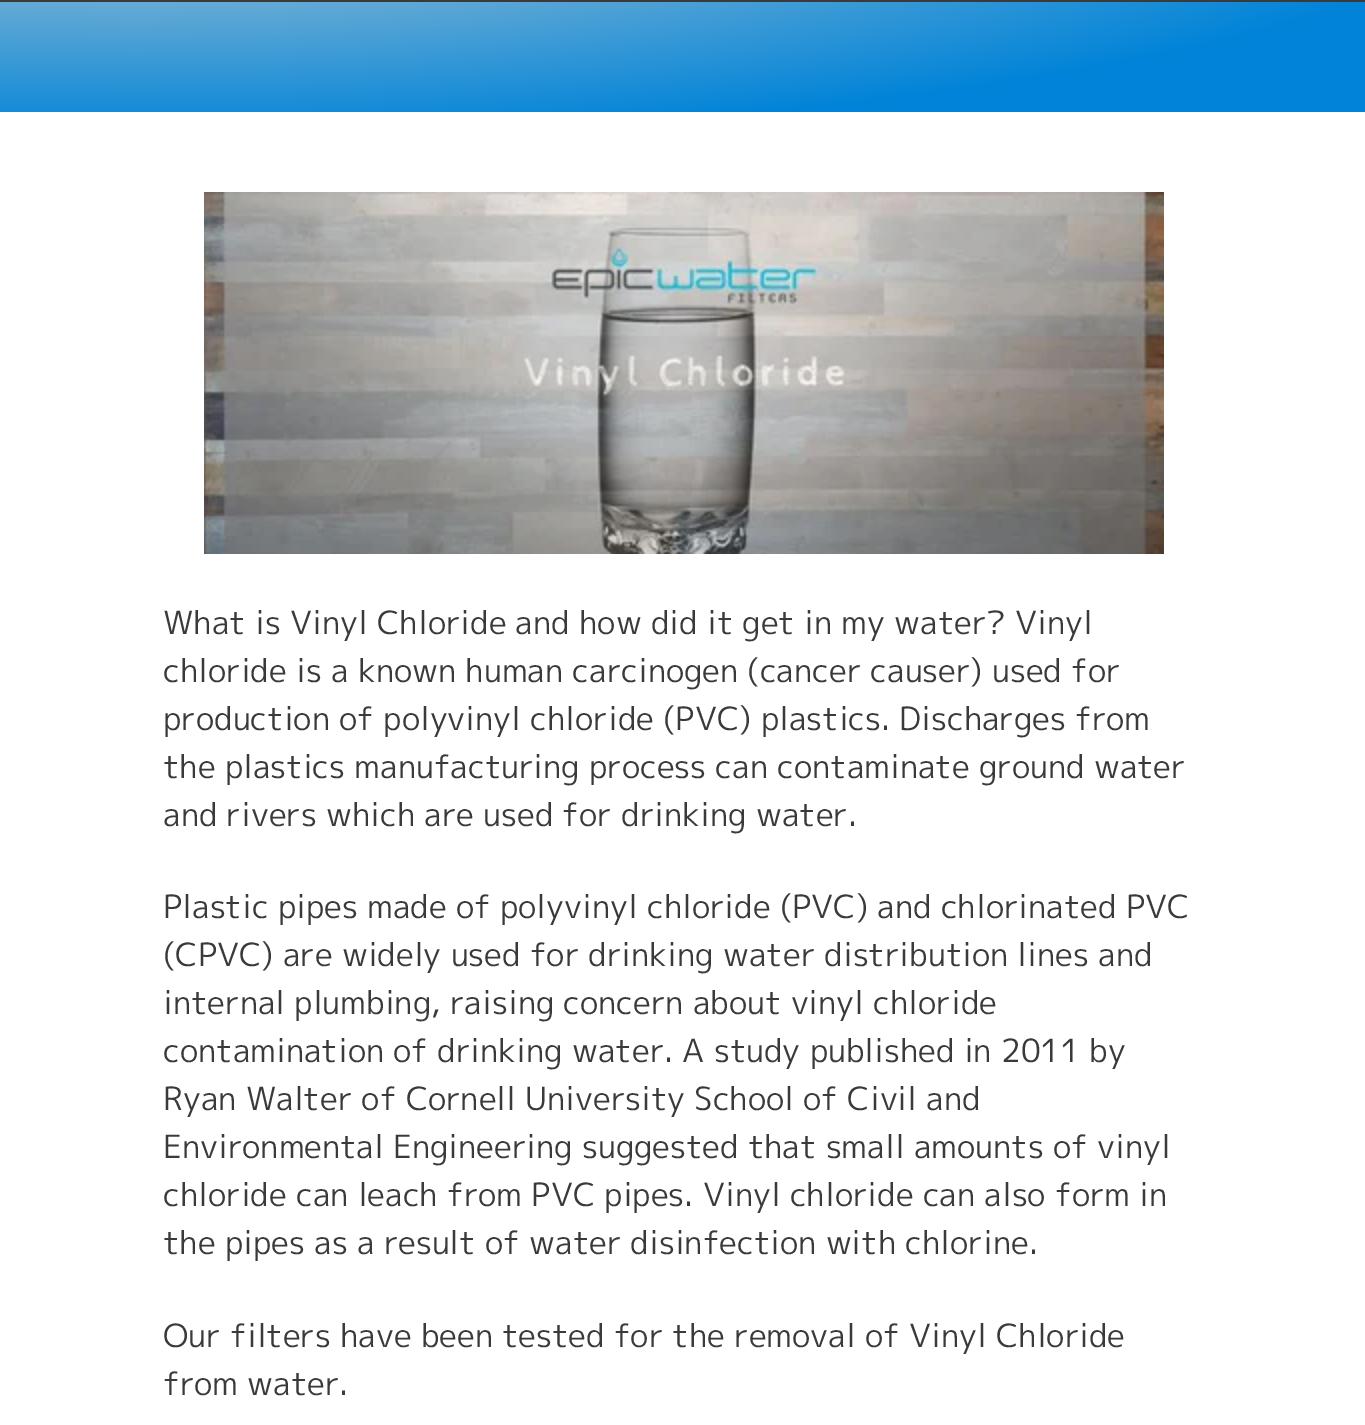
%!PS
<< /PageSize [1365 1425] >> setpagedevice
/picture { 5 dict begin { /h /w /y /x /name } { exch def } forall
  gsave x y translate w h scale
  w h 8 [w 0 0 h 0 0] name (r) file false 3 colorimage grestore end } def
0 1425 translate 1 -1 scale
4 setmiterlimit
1 setgray
0 0 1365 1425 rectfill
0.227 0.227 0.235 setrgbcolor
0 0 1365 2 rectfill
gsave newpath 0 2 moveto 1365 2 lineto 1365 112 lineto 0 112 lineto closepath clip newpath 137 -120 translate 1739 328 scale
<< /ShadingType 3 /ColorSpace /DeviceRGB /Coords [0 0 0 0 0 1] /Extend [true true] /Function << /FunctionType 3 /Domain [0 1] /Functions [<< /FunctionType 2 /Domain [0 1] /C0 [0.745 0.804 0.824] /C1 [0 0.514 0.847] /N 1 >> << /FunctionType 2 /Domain [0 1] /C0 [0 0.514 0.847] /C1 [0 0.514 0.847] /N 1 >>] /Bounds [0.8] /Encode [0 1 0 1] >> >> shfill grestore
(img1.rgb) 204 192 960 362 picture
/MPLUS1p-Regular [32 0 0 -32 0 0] selectfont
163 634 moveto (What is Vinyl Chloride and how did it get in my water? Vinyl) show
163 682 moveto (chloride is a known human carcinogen \(cancer causer\) used for) show
163 730 moveto (production of polyvinyl chloride \(PVC\) plastics. Discharges from) show
163 778 moveto (the plastics manufacturing process can contaminate ground water) show
163 826 moveto (and rivers which are used for drinking water.) show
163 918 moveto (Plastic pipes made of polyvinyl chloride \(PVC\) and chlorinated PVC) show
163 966 moveto (\(CPVC\) are widely used for drinking water distribution lines and) show
163 1014 moveto (internal plumbing, raising concern about vinyl chloride) show
163 1062 moveto (contamination of drinking water. A study published in 2011 by) show
163 1110 moveto (Ryan Walter of Cornell University School of Civil and) show
163 1158 moveto (Environmental Engineering suggested that small amounts of vinyl) show
163 1206 moveto (chloride can leach from PVC pipes. Vinyl chloride can also form in) show
163 1254 moveto (the pipes as a result of water disinfection with chlorine.) show
163 1347 moveto (Our filters have been tested for the removal of Vinyl Chloride) show
163 1395 moveto (from water.) show
showpage
